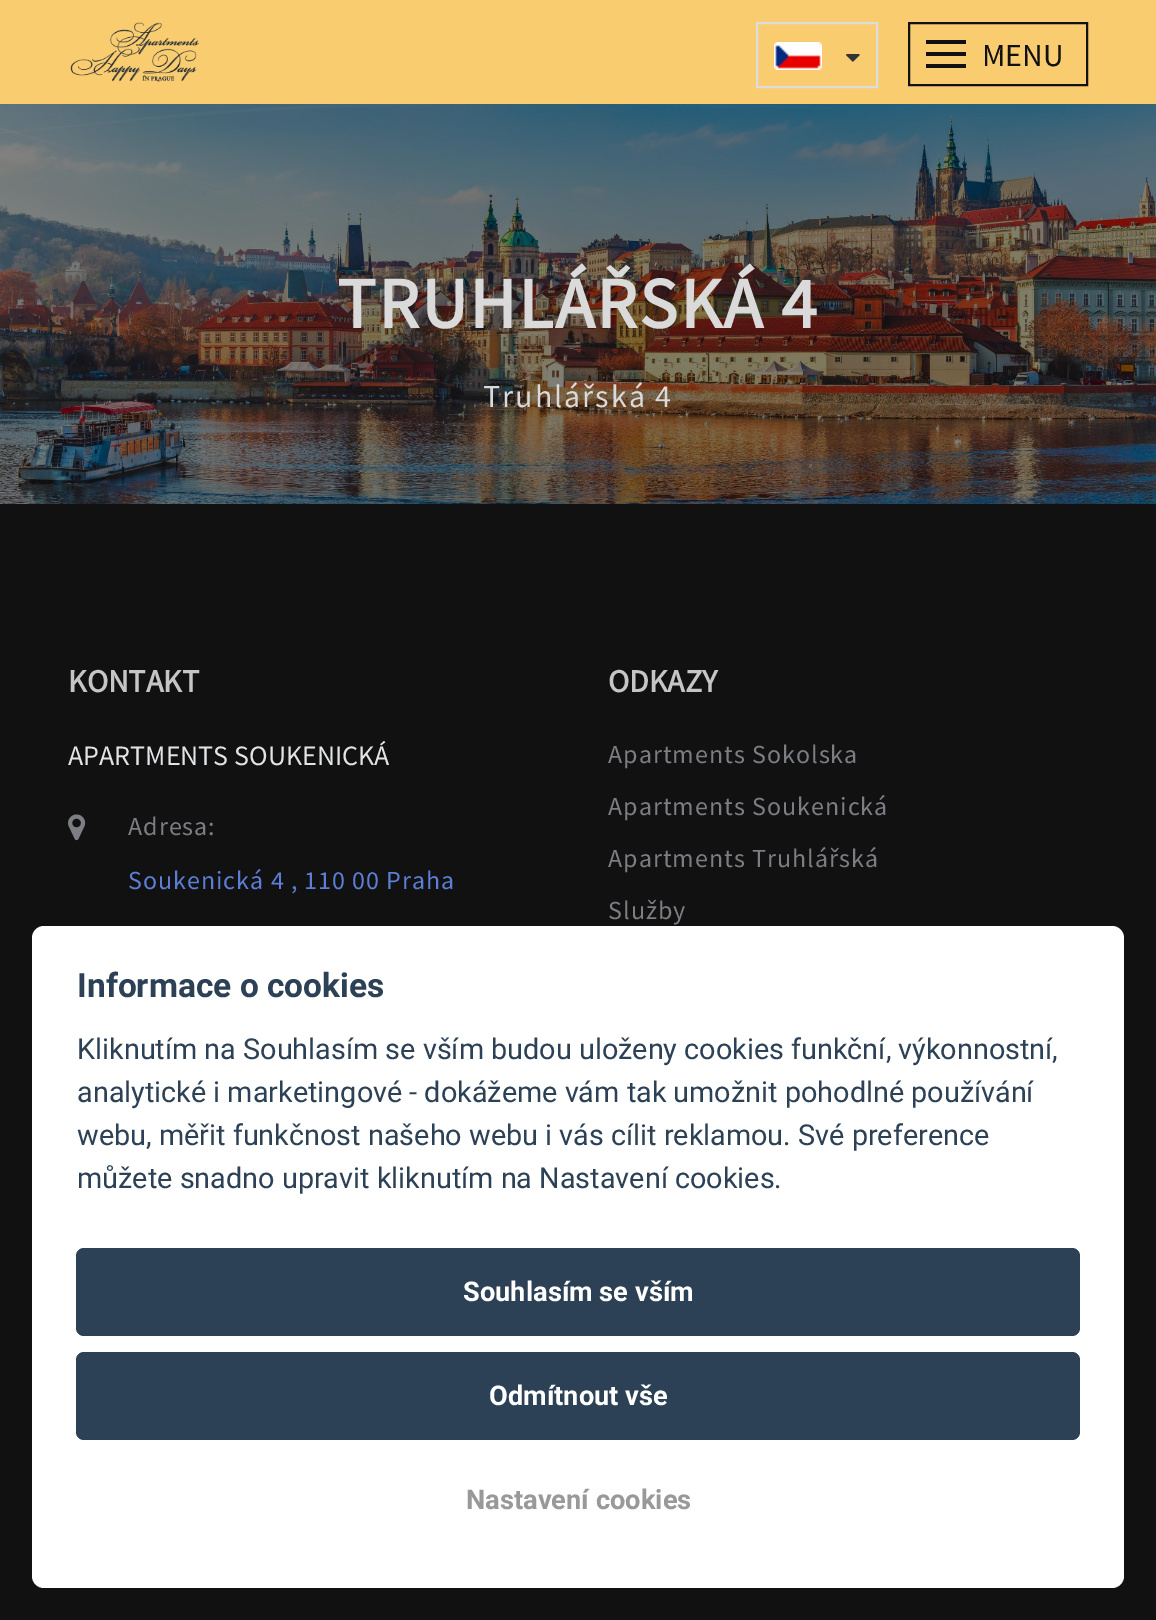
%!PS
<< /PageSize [1156 1620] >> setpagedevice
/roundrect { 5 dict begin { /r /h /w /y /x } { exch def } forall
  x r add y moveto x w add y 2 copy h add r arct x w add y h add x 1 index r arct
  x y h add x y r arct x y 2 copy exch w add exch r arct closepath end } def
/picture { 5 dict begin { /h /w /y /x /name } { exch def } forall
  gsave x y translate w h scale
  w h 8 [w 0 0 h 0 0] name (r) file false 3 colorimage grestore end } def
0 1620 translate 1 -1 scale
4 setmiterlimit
0.067 setgray
0 0 1156 1620 rectfill
0.976 0.8 0.439 setrgbcolor
0 0 1156 104 rectfill
(img1.rgb) 70 22 129 60 picture
0.867 setgray
2 setlinewidth
757 23 120 64 rectstroke
(img2.rgb) 774 42 48 28 picture
(img3.rgb) 846 54 14 8 picture
0.067 setgray
909 23 178 62 rectstroke
926 52 40 4 rectfill
926 40 40 4 rectfill
926 64 40 4 rectfill
/SourceSansPro-Regular [32 0 0 -32 0 0] selectfont
982 66 moveto (MENU) show
(img4.rgb) 0 104 1156 400 picture
/SourceSansPro-Bold [72 0 0 -72 0 0] selectfont
0.855 setgray
337 328 moveto 2 0 (TRUHLÁŘSKÁ 4) ashow
/SourceSansPro-Regular [32 0 0 -32 0 0] selectfont
483 407 moveto 2 0 (Truhlářská 4) ashow
/SourceSansPro-Bold [32 0 0 -32 0 0] selectfont
0.773 setgray
68 692 moveto (KONTAKT) show
/SourceSansPro-Regular [28 0 0 -28 0 0] selectfont
0.886 0.89 0.898 setrgbcolor
68 765 moveto (APARTMENTS SOUKENICKÁ) show
(img5.rgb) 68 814 18 27 picture
/SourceSansPro-Regular [26 0 0 -26 0 0] selectfont
0.486 0.494 0.514 setrgbcolor
128 835 moveto 1 0 (Adresa:) ashow
0.361 0.494 0.835 setrgbcolor
128 889 moveto 1 0 (Soukenická 4 , 110 00 Praha) ashow
/SourceSansPro-Bold [32 0 0 -32 0 0] selectfont
0.773 setgray
608 692 moveto (ODKAZY) show
/SourceSansPro-Regular [26 0 0 -26 0 0] selectfont
0.486 0.494 0.514 setrgbcolor
608 763 moveto 1 0 (Apartments Sokolska) ashow
608 815 moveto 1 0 (Apartments Soukenická) ashow
608 867 moveto 1 0 (Apartments Truhlářská) ashow
608 919 moveto 1 0 (Služby) ashow
1 setgray
32 926 1092 662 12 roundrect fill
/Roboto-Bold [33.5 0 0 -33.5 0 0] selectfont
0.176 0.255 0.337 setrgbcolor
77 997 moveto (Informace o cookies) show
/Roboto-Regular [28.8 0 0 -28.8 0 0] selectfont
77 1059 moveto (Kliknutím na Souhlasím se vším budou uloženy cookies funkční, výkonnostní,) show
77 1102 moveto (analytické i marketingové - dokážeme vám tak umožnit pohodlné používání) show
77 1145 moveto (webu, měřit funkčnost našeho webu i vás cílit reklamou. Své preference) show
77 1188 moveto (můžete snadno upravit kliknutím na Nastavení cookies.) show
76 1248 1004 88 8 roundrect fill
/Roboto-Bold [27.25 0 0 -27.25 0 0] selectfont
1 setgray
463 1301 moveto (Souhlasím se vším) show
0.176 0.255 0.337 setrgbcolor
76 1352 1004 88 8 roundrect fill
1 setgray
489 1405 moveto (Odmítnout vše) show
0.6 setgray
466 1509 moveto (Nastavení cookies) show
showpage
